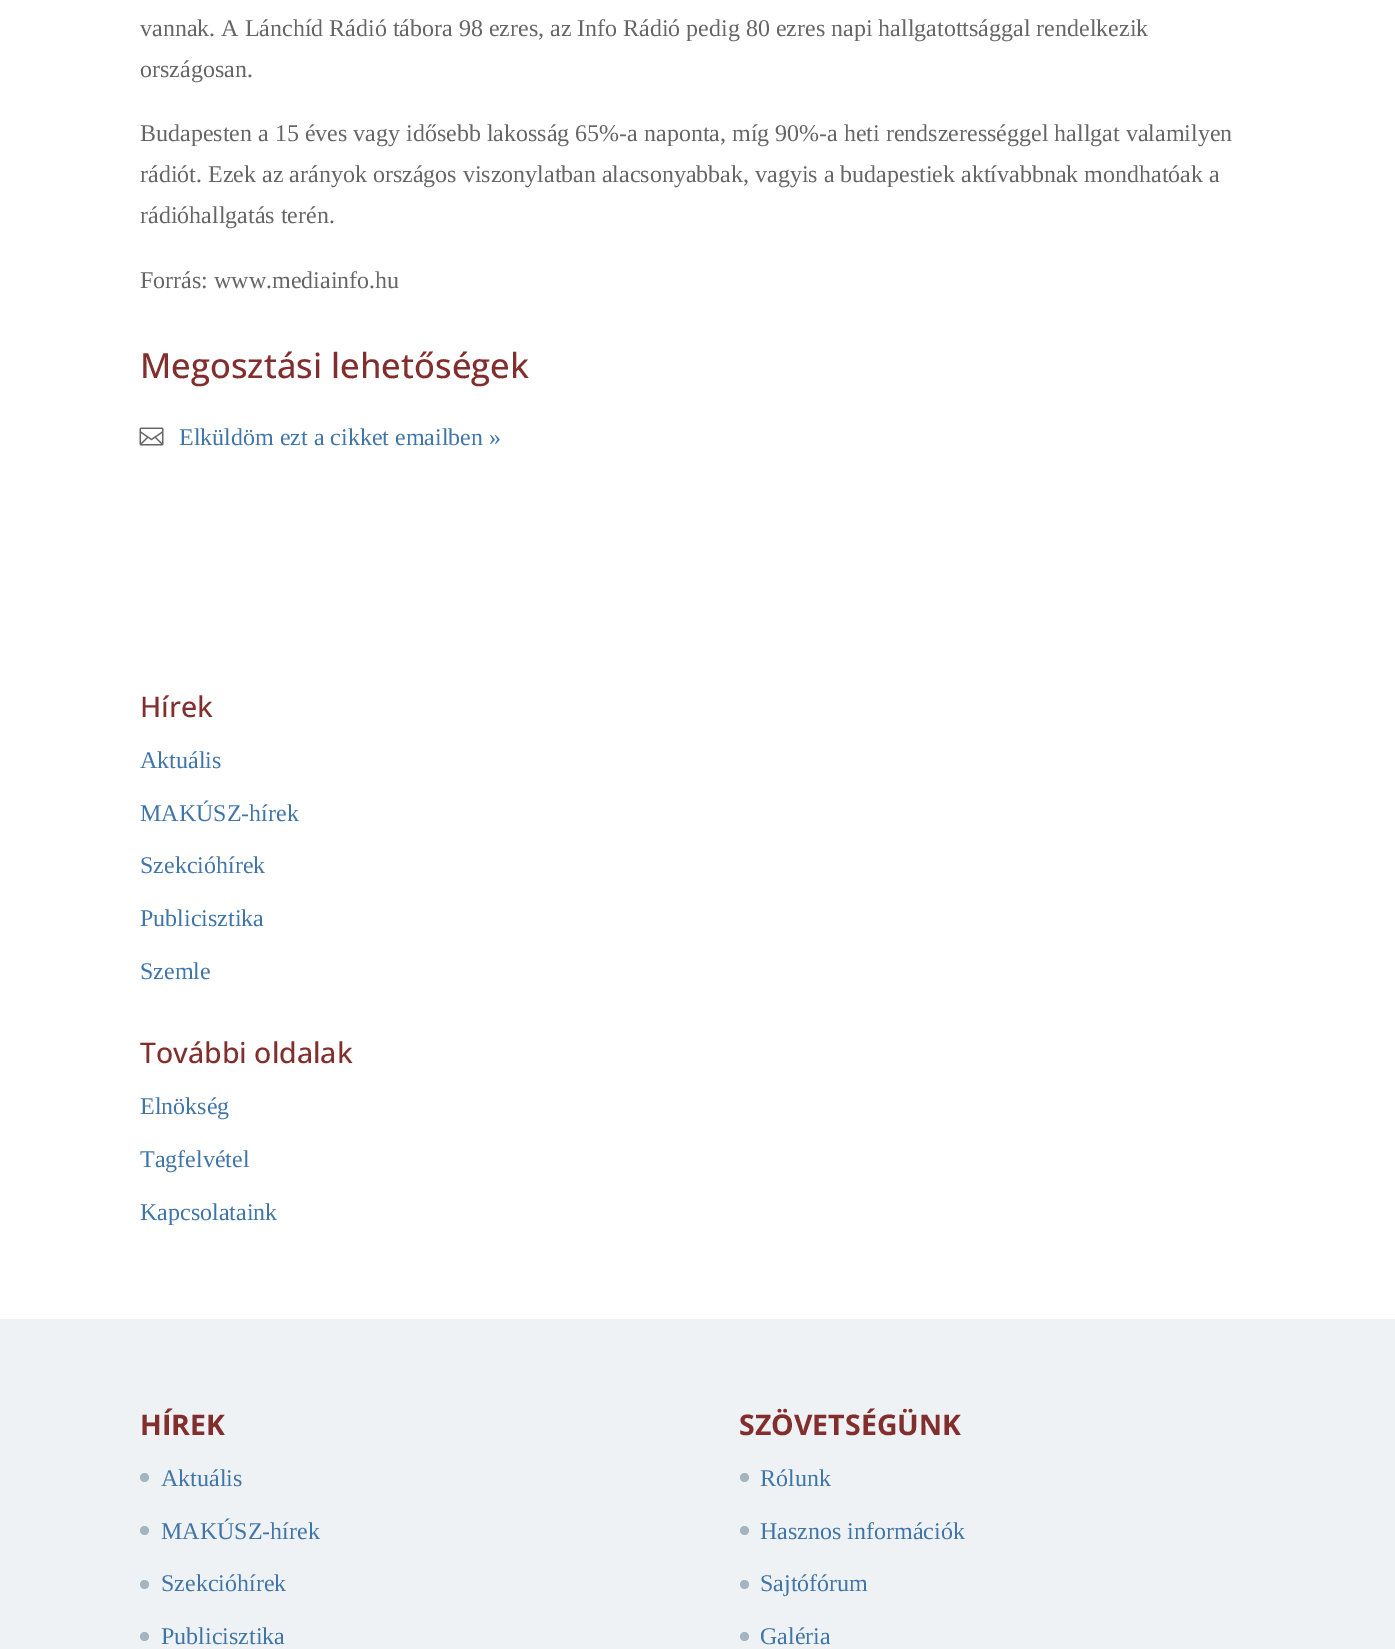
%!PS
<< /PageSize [1395 1649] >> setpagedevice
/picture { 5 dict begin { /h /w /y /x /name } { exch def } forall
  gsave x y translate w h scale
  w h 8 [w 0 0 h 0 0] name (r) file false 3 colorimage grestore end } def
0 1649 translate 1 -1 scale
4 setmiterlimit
1 setgray
0 0 1395 1649 rectfill
/LiberationSerif-Regular [24 0 0 -24 0 0] selectfont
0.4 setgray
140 36 moveto (vannak. A Lánchíd Rádió tábora 98 ezres, az Info Rádió pedig 80 ezres napi hallgatottsággal rendelkezik) show
140 77 moveto (országosan.) show
140 141 moveto (Budapesten a 15 éves vagy idősebb lakosság 65%-a naponta, míg 90%-a heti rendszerességgel hallgat valamilyen) show
140 182 moveto (rádiót. Ezek az arányok országos viszonylatban alacsonyabbak, vagyis a budapestiek aktívabbnak mondhatóak a) show
140 223 moveto (rádióhallgatás terén.) show
140 288 moveto (Forrás: www.mediainfo.hu) show
/OpenSans-Medium [34.5 0 0 -34.5 0 0] selectfont
0.51 0.18 0.176 setrgbcolor
140 378 moveto (Megosztási lehetőségek) show
(img1.rgb) 139 427 25 19 picture
/LiberationSerif-Regular [24 0 0 -24 0 0] selectfont
0.251 0.459 0.667 setrgbcolor
179 445 moveto (Elküldöm ezt a cikket emailben ») show
/OpenSans-Medium [28.5 0 0 -28.5 0 0] selectfont
0.51 0.18 0.176 setrgbcolor
140 717 moveto (Hírek) show
/LiberationSerif-Regular [24 0 0 -24 0 0] selectfont
0.251 0.459 0.667 setrgbcolor
140 768 moveto (Aktuális) show
140 821 moveto (MAKÚSZ-hírek) show
140 873 moveto (Szekcióhírek) show
140 926 moveto (Publicisztika) show
140 979 moveto (Szemle) show
/OpenSans-Medium [28.5 0 0 -28.5 0 0] selectfont
0.51 0.18 0.176 setrgbcolor
140 1063 moveto (További oldalak) show
/LiberationSerif-Regular [24 0 0 -24 0 0] selectfont
0.251 0.459 0.667 setrgbcolor
140 1114 moveto (Elnökség) show
140 1167 moveto (Tagfelvétel) show
140 1220 moveto (Kapcsolataink) show
0.937 0.949 0.957 setrgbcolor
0 1319 1395 330 rectfill
/OpenSans-Bold [28.5 0 0 -28.5 0 0] selectfont
0.51 0.18 0.176 setrgbcolor
140 1435 moveto (HÍREK) show
0.635 0.71 0.757 setrgbcolor
newpath 144.5 1477.5 4.5 0 360 arc closepath fill
/LiberationSerif-Regular [24 0 0 -24 0 0] selectfont
0.251 0.459 0.667 setrgbcolor
161 1486 moveto (Aktuális) show
0.635 0.71 0.757 setrgbcolor
newpath 144.5 1530.5 4.5 0 360 arc closepath fill
0.251 0.459 0.667 setrgbcolor
161 1539 moveto (MAKÚSZ-hírek) show
0.635 0.71 0.757 setrgbcolor
newpath 144.5 1584.5 4.5 0 360 arc closepath fill
0.251 0.459 0.667 setrgbcolor
161 1591 moveto (Szekcióhírek) show
0.635 0.71 0.757 setrgbcolor
newpath 144.5 1636.5 4.5 0 360 arc closepath fill
0.251 0.459 0.667 setrgbcolor
161 1644 moveto (Publicisztika) show
/OpenSans-Bold [28.5 0 0 -28.5 0 0] selectfont
0.51 0.18 0.176 setrgbcolor
739 1435 moveto (SZÖVETSÉGÜNK) show
0.635 0.71 0.757 setrgbcolor
newpath 744.5 1477.5 4.5 0 360 arc closepath fill
/LiberationSerif-Regular [24 0 0 -24 0 0] selectfont
0.251 0.459 0.667 setrgbcolor
760 1486 moveto (Rólunk) show
0.635 0.71 0.757 setrgbcolor
newpath 744.5 1530.5 4.5 0 360 arc closepath fill
0.251 0.459 0.667 setrgbcolor
760 1539 moveto (Hasznos információk) show
0.635 0.71 0.757 setrgbcolor
newpath 744.5 1584.5 4.5 0 360 arc closepath fill
0.251 0.459 0.667 setrgbcolor
760 1591 moveto (Sajtófórum) show
0.635 0.71 0.757 setrgbcolor
newpath 744.5 1636.5 4.5 0 360 arc closepath fill
0.251 0.459 0.667 setrgbcolor
760 1644 moveto (Galéria) show
showpage
